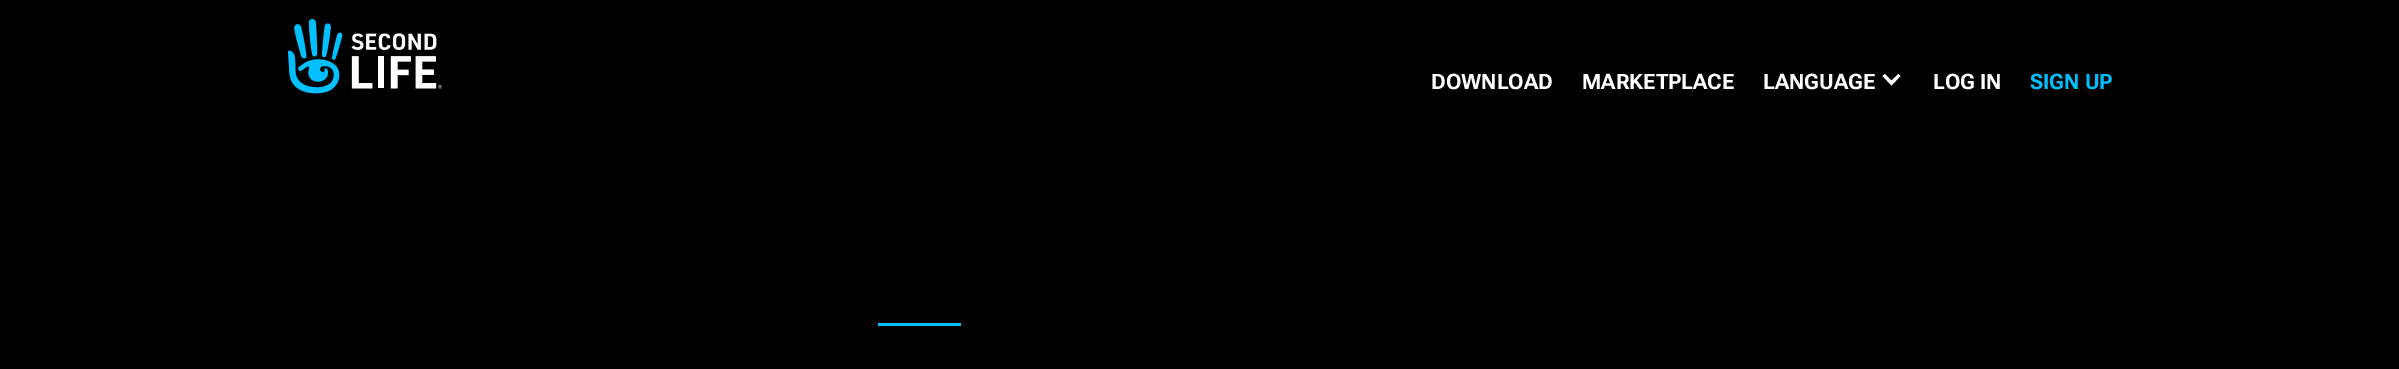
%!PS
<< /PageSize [2399 369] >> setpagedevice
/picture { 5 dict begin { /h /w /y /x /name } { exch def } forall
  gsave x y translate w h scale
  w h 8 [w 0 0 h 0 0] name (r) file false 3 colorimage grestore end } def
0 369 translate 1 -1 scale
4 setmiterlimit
0 setgray
0 0 2399 369 rectfill
(img1.rgb) 288 19 155 75 picture
/RobotoFlex-Bold [21.25 0 0 -21.25 0 0] selectfont
1 setgray
1431 89 moveto (DOWNLOAD) show
1582 89 moveto (MARKETPLACE) show
1763 89 moveto (LANGUAGE) show
newpath 1898.5 74 moveto 1891.5 80.5 lineto 1885 74 lineto 1882.5 76 lineto 1891.5 85.5 lineto 1900.5 76 lineto closepath fill
1933 89 moveto (LOG IN) show
0 0.749 1 setrgbcolor
2030 89 moveto (SIGN UP) show
878 323 83 3 rectfill
showpage
